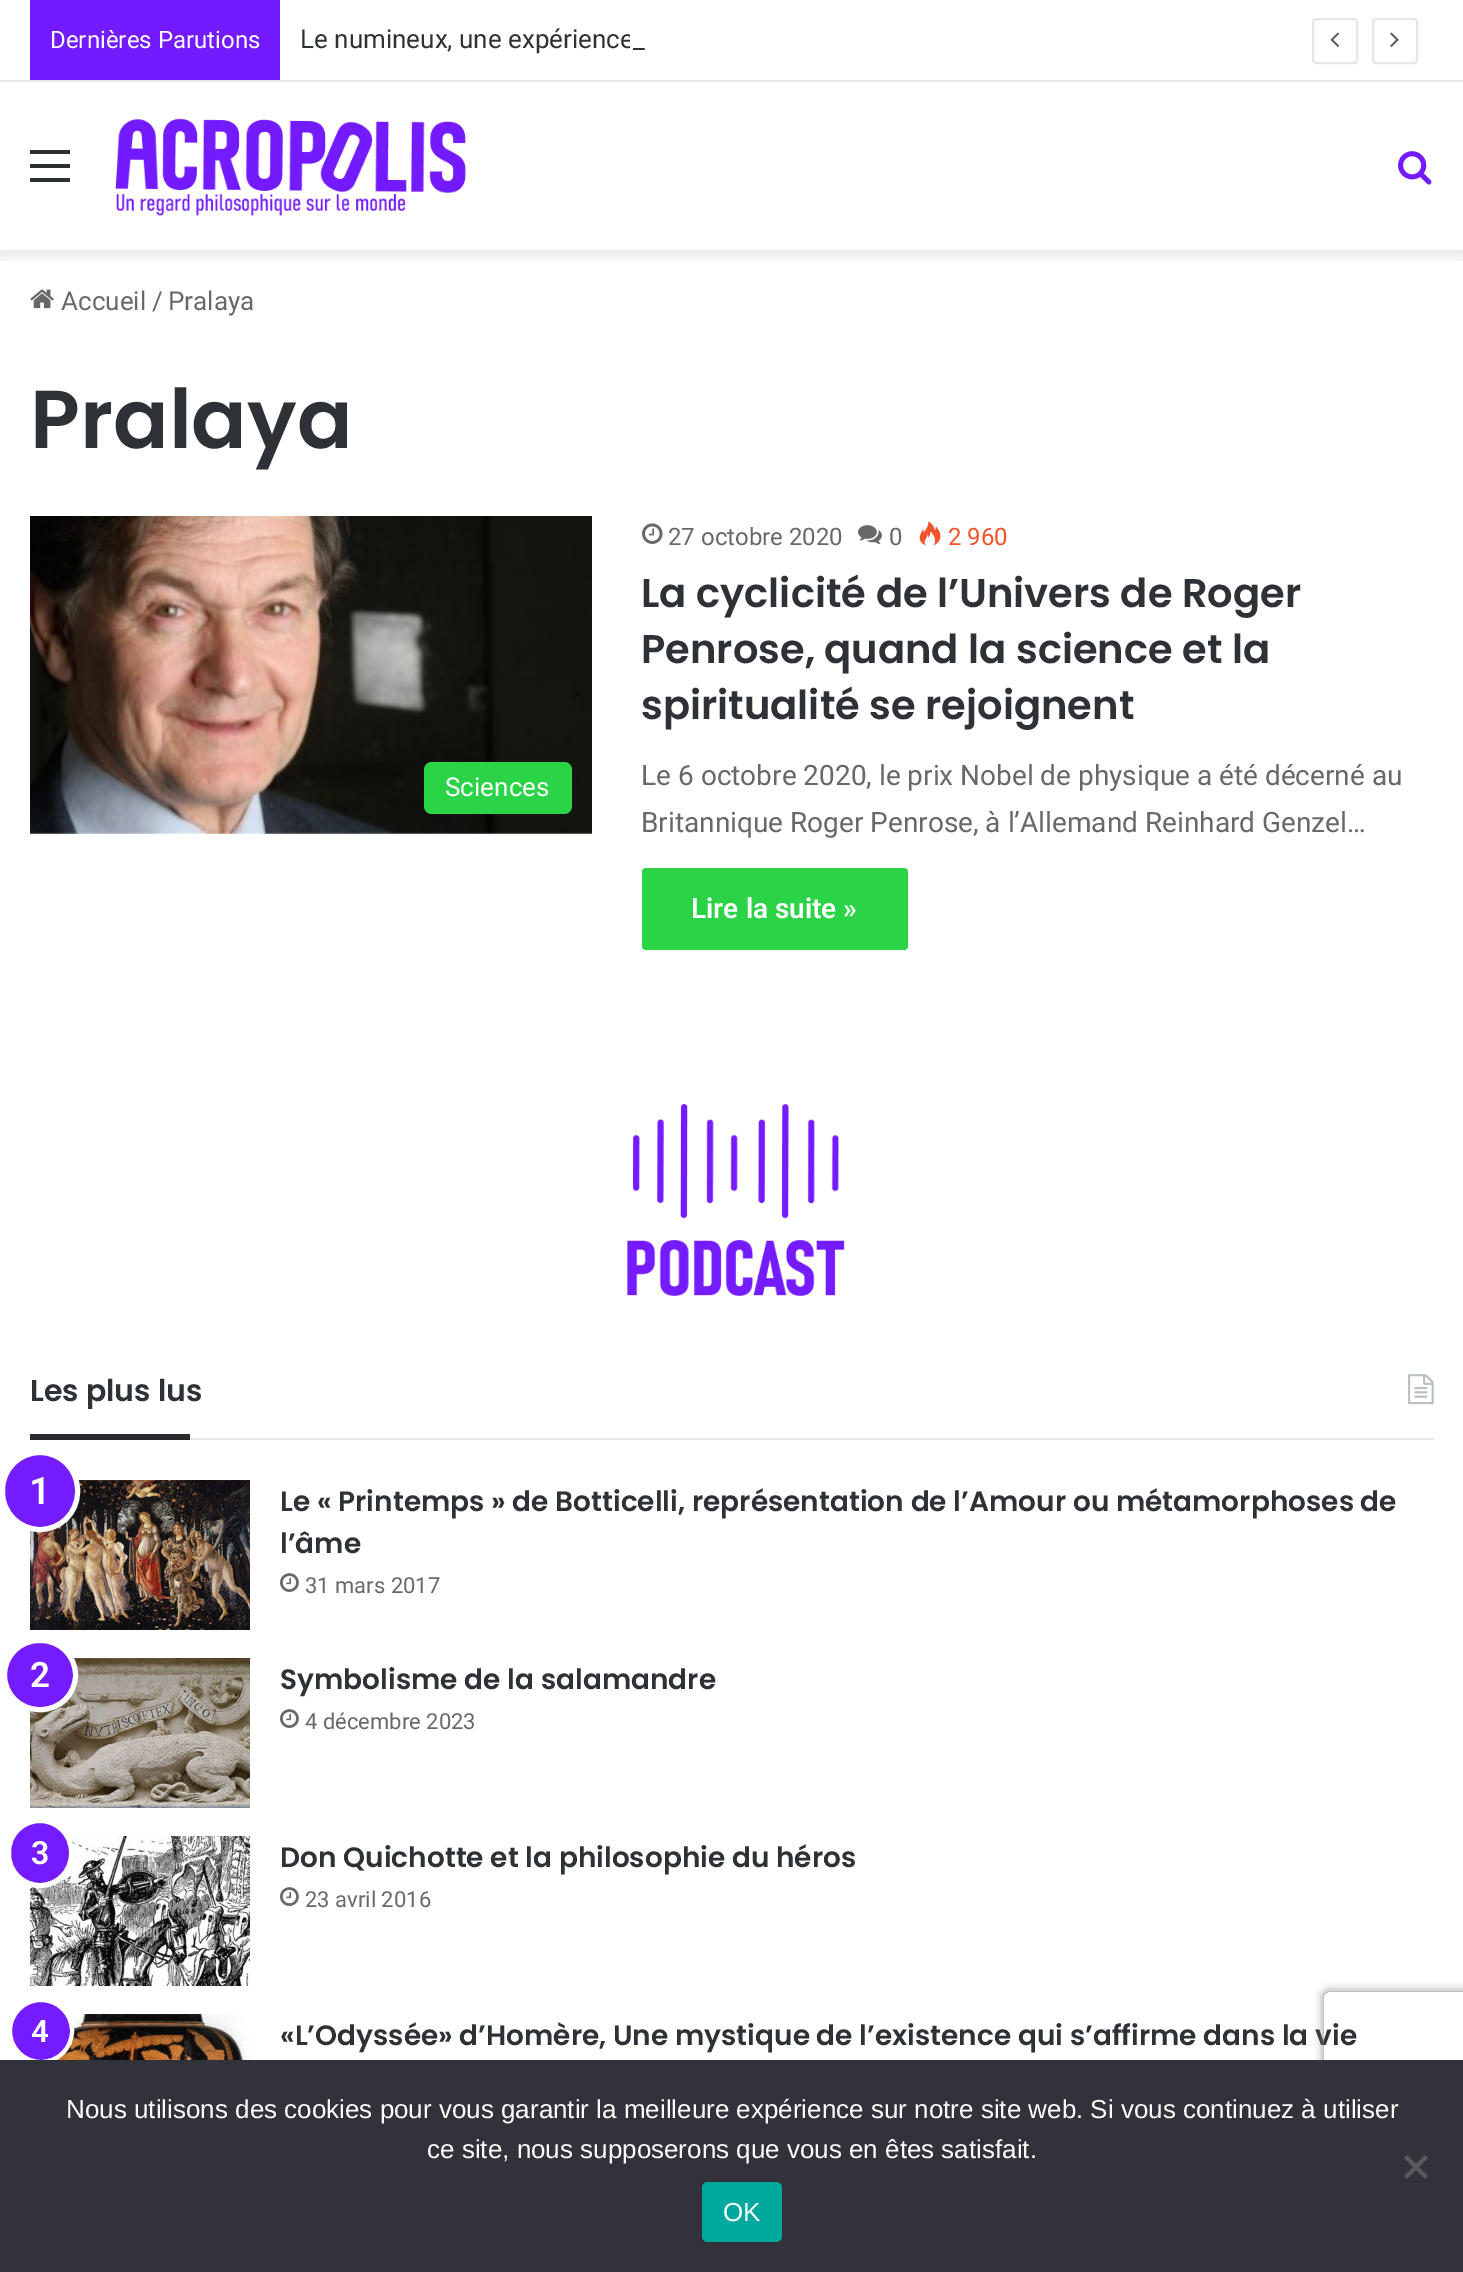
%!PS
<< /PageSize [1463 2272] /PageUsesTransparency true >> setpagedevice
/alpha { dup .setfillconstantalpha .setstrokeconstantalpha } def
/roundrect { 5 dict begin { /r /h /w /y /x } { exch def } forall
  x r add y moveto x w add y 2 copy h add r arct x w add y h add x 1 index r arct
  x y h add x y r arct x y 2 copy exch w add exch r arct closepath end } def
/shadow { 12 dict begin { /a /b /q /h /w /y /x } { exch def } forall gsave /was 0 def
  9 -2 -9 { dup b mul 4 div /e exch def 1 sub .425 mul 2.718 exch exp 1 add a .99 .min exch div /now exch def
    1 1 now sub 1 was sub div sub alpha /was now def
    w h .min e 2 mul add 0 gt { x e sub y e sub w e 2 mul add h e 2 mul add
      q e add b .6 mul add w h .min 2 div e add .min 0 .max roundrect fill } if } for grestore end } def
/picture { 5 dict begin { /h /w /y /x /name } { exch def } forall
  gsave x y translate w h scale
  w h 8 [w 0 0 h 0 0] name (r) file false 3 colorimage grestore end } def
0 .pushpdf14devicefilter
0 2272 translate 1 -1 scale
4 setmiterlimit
1 setgray
0 0 1463 2272 rectfill
gsave
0 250 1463 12 rectclip
0 setgray
0 88 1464 168 0 7 0.1 shadow
grestore
9 79 1446 1 rectfill
0.902 setgray
0 80 1463 2 rectfill
0.451 0.102 1 setrgbcolor
30 0 250 80 rectfill
/Roboto-Regular [24 0 0 -24 0 0] selectfont
1 setgray
50 48 moveto (Dernières Parutions) show
/Roboto-Regular [26 0 0 -26 0 0] selectfont
0.18 0.192 0.212 setrgbcolor
300 48 moveto (Le numineux, une expérience) show
1 setgray
630 34 3 14 rectfill
0.18 0.192 0.212 setrgbcolor
633 48 moveto (_) show
0.902 setgray
2 setlinewidth
1313 19 44 44 3 roundrect stroke
(img1.rgb) 1330 32 10 15 picture
1373 19 44 44 3 roundrect stroke
(img2.rgb) 1390 32 9 15 picture
0.173 0.184 0.204 setrgbcolor
30 164 40 4 rectfill
30 150 40 4 rectfill
30 178 40 4 rectfill
(img3.rgb) 115 118 351 98 picture
(img4.rgb) 1398 151 34 34 picture
(img5.rgb) 30 289 24 20 picture
0.408 setgray
61 310 moveto (Accueil) show
152 310 moveto (/) show
168 310 moveto (Pralaya) show
/Poppins-SemiBold [82 0 0 -82 0 0] selectfont
0.18 0.192 0.212 setrgbcolor
30 448 moveto (Pralaya) show
(img6.rgb) 30 516 562 318 picture
0.169 0.827 0.278 setrgbcolor
424 762 148 52 8 roundrect fill
/Roboto-Regular [26 0 0 -26 0 0] selectfont
1 setgray
445 796 moveto (Sciences) show
(img7.rgb) 642 523 21 21 picture
/Roboto-Regular [24 0 0 -24 0 0] selectfont
0.408 setgray
668 545 moveto (27 octobre 2020) show
(img8.rgb) 858 525 24 19 picture
889 545 moveto (0) show
(img9.rgb) 919 521 22 25 picture
0.953 0.322 0.173 setrgbcolor
948 545 moveto (2 960) show
/Poppins-SemiBold [40 0 0 -40 0 0] selectfont
0.18 0.192 0.212 setrgbcolor
641 607 moveto (La cyclicité de l’Univers de Roger) show
641 663 moveto (Penrose, quand la science et la) show
641 719 moveto (spiritualité se rejoignent) show
/Roboto-Regular [28 0 0 -28 0 0] selectfont
0.408 setgray
641 785 moveto (Le 6 octobre 2020, le prix Nobel de physique a été décerné au) show
641 832 moveto (Britannique Roger Penrose, à l’Allemand Reinhard Genzel…) show
0.169 0.827 0.278 setrgbcolor
642 868 266 82 4 roundrect fill
/Roboto-SemiBold [28 0 0 -28 0 0] selectfont
1 setgray
691 918 moveto (Lire la suite ») show
(img10.rgb) 627 1104 218 192 picture
0.902 setgray
190 1438 1244 2 rectfill
/Poppins-SemiBold [30 0 0 -30 0 0] selectfont
0.18 0.192 0.212 setrgbcolor
30 1401 moveto (Les plus lus) show
(img11.rgb) 1408 1374 26 31 picture
0.161 0.169 0.184 setrgbcolor
30 1434 160 6 rectfill
(img12.rgb) 30 1480 220 150 picture
0.455 0.11 1 setrgbcolor
2.5 1452.5 75 77 37.5 roundrect gsave fill grestore
1 setgray
5 setlinewidth
stroke
/Roboto-SemiBold [38 0 0 -38 0 0] selectfont
29 1504 moveto (1) show
/Poppins-SemiBold [28 0 0 -28 0 0] selectfont
0.18 0.192 0.212 setrgbcolor
280 1511 moveto (Le « Printemps » de Botticelli, représentation de l’Amour ou métamorphoses de) show
280 1553 moveto (l’âme) show
(img13.rgb) 280 1573 19 19 picture
/Roboto-Regular [22 0 0 -22 0 0] selectfont
0.408 setgray
305 1593 moveto (31 mars 2017) show
(img14.rgb) 30 1658 220 150 picture
0.455 0.11 1 setrgbcolor
4.5 1640.5 71 69 34.5 roundrect gsave fill grestore
1 setgray
stroke
/Roboto-SemiBold [35 0 0 -35 0 0] selectfont
30 1687 moveto (2) show
/Poppins-SemiBold [28 0 0 -28 0 0] selectfont
0.18 0.192 0.212 setrgbcolor
280 1689 moveto (Symbolisme de la salamandre) show
(img13.rgb) 280 1709 19 19 picture
/Roboto-Regular [22 0 0 -22 0 0] selectfont
0.408 setgray
305 1729 moveto (4 décembre 2023) show
(img15.rgb) 30 1836 220 150 picture
0.455 0.11 1 setrgbcolor
8.5 1820.5 63 65 31.5 roundrect gsave fill grestore
1 setgray
stroke
/Roboto-SemiBold [32 0 0 -32 0 0] selectfont
31 1864 moveto (3) show
/Poppins-SemiBold [28 0 0 -28 0 0] selectfont
0.18 0.192 0.212 setrgbcolor
280 1867 moveto (Don Quichotte et la philosophie du héros) show
(img13.rgb) 280 1887 19 19 picture
/Roboto-Regular [22 0 0 -22 0 0] selectfont
0.408 setgray
305 1907 moveto (23 avril 2016) show
(img16.rgb) 56 2014 194 46 picture
0.455 0.11 1 setrgbcolor
newpath 41 2031 31 0 360 arc closepath gsave fill grestore
1 setgray
4 setlinewidth
stroke
/Roboto-SemiBold [31 0 0 -31 0 0] selectfont
31 2042 moveto (4) show
/Poppins-SemiBold [28 0 0 -28 0 0] selectfont
0.18 0.192 0.212 setrgbcolor
280 2045 moveto («L’Odyssée» d’Homère, Une mystique de l’existence qui s’affirme dans la vie) show
gsave
newpath 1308 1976 moveto 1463 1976 lineto 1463 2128 lineto 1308 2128 lineto closepath 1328 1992 moveto 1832 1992 lineto 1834 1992 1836 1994 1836 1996 curveto 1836 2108 lineto 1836 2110 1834 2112 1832 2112 curveto 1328 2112 lineto 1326 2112 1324 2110 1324 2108 curveto 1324 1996 lineto 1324 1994 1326 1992 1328 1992 curveto closepath eoclip newpath
0.502 setgray
1324 1992 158 120 4 5 1 shadow
grestore
0.196 0.196 0.227 setrgbcolor
0 2060 1463 212 rectfill
/LiberationSans-Regular [26 0 0 -26 0 0] selectfont
1 setgray
66 2118 moveto (Nous utilisons des cookies pour vous garantir la meilleure expérience sur notre site web. Si vous continuez à utiliser) show
427 2158 moveto (ce site, nous supposerons que vous en êtes satisfait.) show
0.349 0.349 0.365 setrgbcolor
newpath 1425 2155 moveto 1428 2158 lineto 1407 2179 lineto 1404 2176 lineto closepath fill
newpath 1404 2158 moveto 1407 2155 lineto 1428 2176 lineto 1425 2179 lineto closepath fill
0 0.663 0.616 setrgbcolor
702 2182 80 60 6 roundrect fill
1 setgray
723 2221 moveto (OK) show
.poppdf14devicefilter showpage
